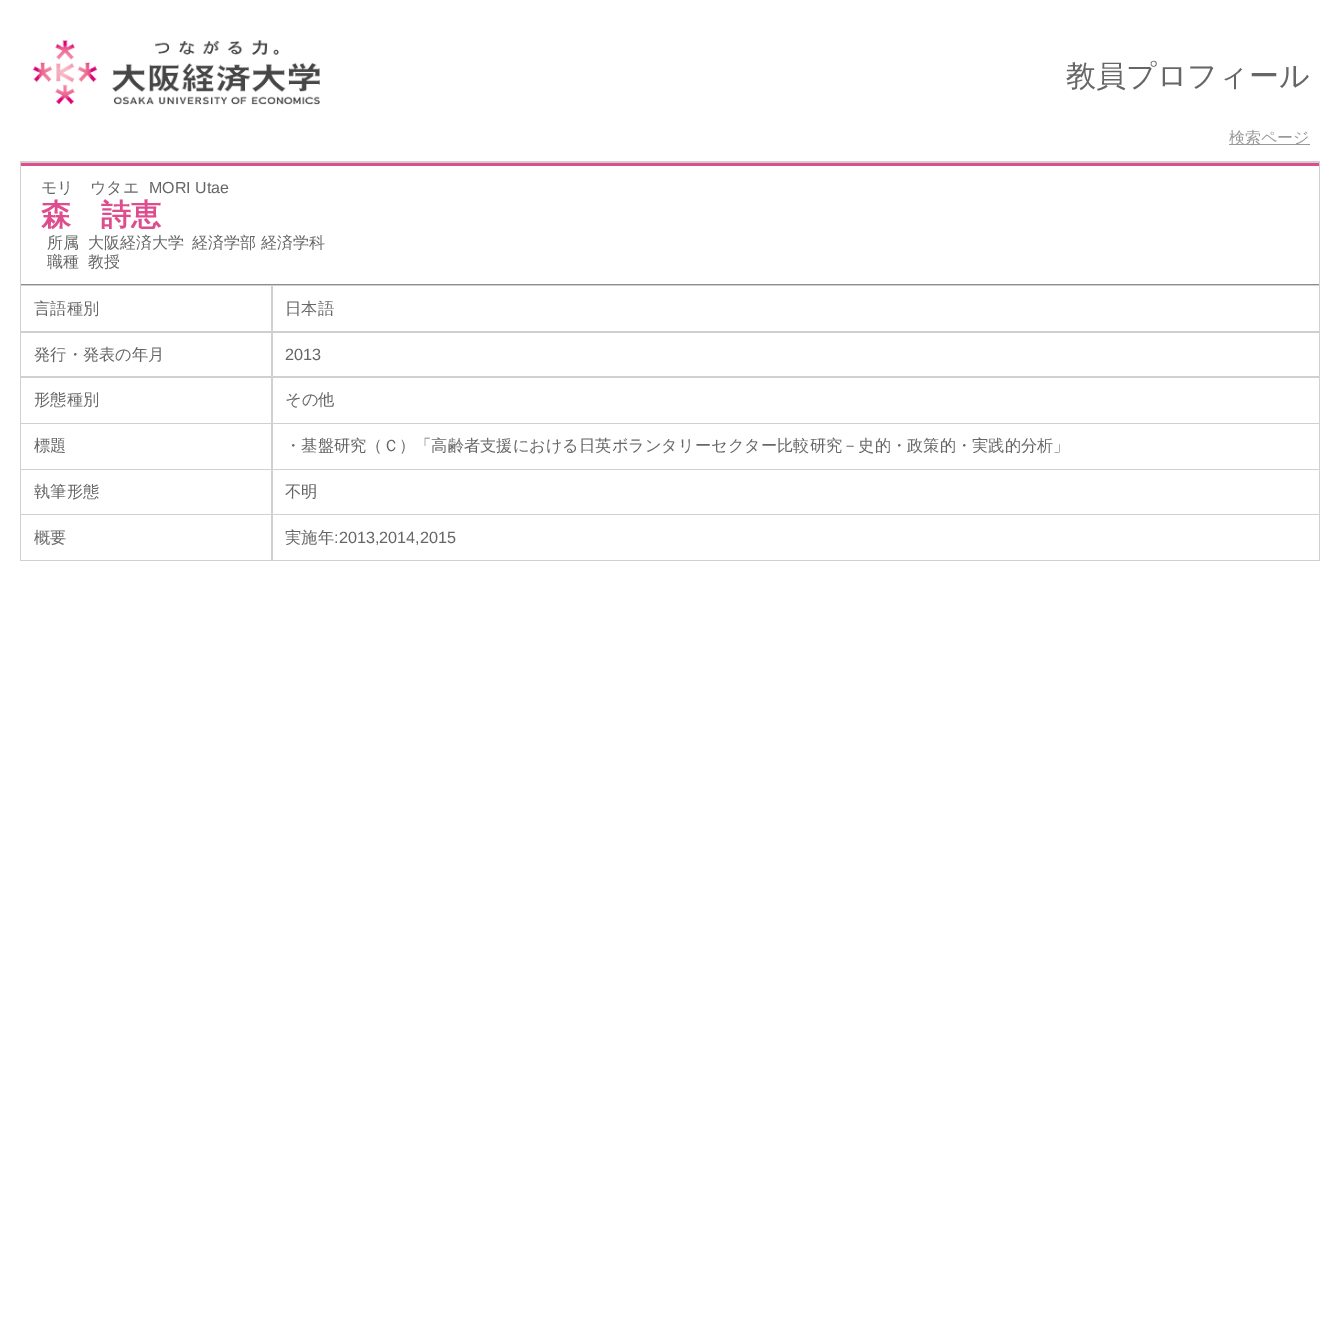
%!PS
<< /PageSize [1340 1337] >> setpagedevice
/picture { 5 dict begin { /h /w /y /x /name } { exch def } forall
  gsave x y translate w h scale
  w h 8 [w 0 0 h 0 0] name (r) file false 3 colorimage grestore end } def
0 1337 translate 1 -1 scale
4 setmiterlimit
1 setgray
0 0 1340 1337 rectfill
(img1.rgb) 32 40 288 65 picture
/WenQuanYiZenHei-Medium [30 0 0 -30 0 0] selectfont
0.4 setgray
1066 86 moveto (教員プロフィール) show
0.6 setgray
1229 144 81 1 rectfill
/WenQuanYiZenHei-Medium [16 0 0 -16 0 0] selectfont
1229 143 moveto (検索ページ) show
0.816 setgray
20 161 1300 400 rectfill
1 setgray
21 166 1298 118 rectfill
0.871 0.302 0.557 setrgbcolor
21 163 1298 3 rectfill
0.549 setgray
21 284 1298 1 rectfill
0.4 setgray
41 193 moveto (モリ　ウタエ) show
/LiberationSans-Regular [16 0 0 -16 0 0] selectfont
149 193 moveto (MORI Utae) show
/WenQuanYiZenHei-Bold [30 0 0 -30 0 0] selectfont
0.871 0.302 0.557 setrgbcolor
41 225 moveto (森　詩恵) show
/WenQuanYiZenHei-Medium [16 0 0 -16 0 0] selectfont
0.4 setgray
47 248 moveto (所属) show
88 248 moveto (大阪経済大学) show
192 248 moveto (経済学部 経済学科) show
47 267 moveto (職種) show
88 267 moveto (教授) show
1 setgray
21 286 250 45 rectfill
/WenQuanYiZenHei-Medium [16.25 0 0 -16.25 0 0] selectfont
0.4 setgray
34 314 moveto (言語種別) show
1 setgray
273 286 1046 45 rectfill
0.4 setgray
285 314 moveto (日本語) show
1 setgray
21 333 250 43 rectfill
0.4 setgray
34 360 moveto (発行・発表の年月) show
1 setgray
273 333 1046 43 rectfill
/LiberationSans-Regular [16.25 0 0 -16.25 0 0] selectfont
0.4 setgray
285 360 moveto (2013) show
1 setgray
21 378 250 45 rectfill
/WenQuanYiZenHei-Medium [16.25 0 0 -16.25 0 0] selectfont
0.4 setgray
34 405 moveto (形態種別) show
1 setgray
273 378 1046 45 rectfill
0.4 setgray
285 405 moveto (その他) show
1 setgray
21 424 250 45 rectfill
0.4 setgray
34 451 moveto (標題) show
1 setgray
273 424 1046 45 rectfill
0.4 setgray
285 451 moveto (・基盤研究（Ｃ）「高齢者支援における日英ボランタリーセクター比較研究－史的・政策的・実践的分析」) show
1 setgray
21 470 250 44 rectfill
0.4 setgray
34 497 moveto (執筆形態) show
1 setgray
273 470 1046 44 rectfill
0.4 setgray
285 497 moveto (不明) show
1 setgray
21 515 250 45 rectfill
0.4 setgray
34 543 moveto (概要) show
1 setgray
273 515 1046 45 rectfill
0.4 setgray
285 543 moveto (実施年) show
/LiberationSans-Regular [16.25 0 0 -16.25 0 0] selectfont
334 543 moveto (:2013,2014,2015) show
showpage
